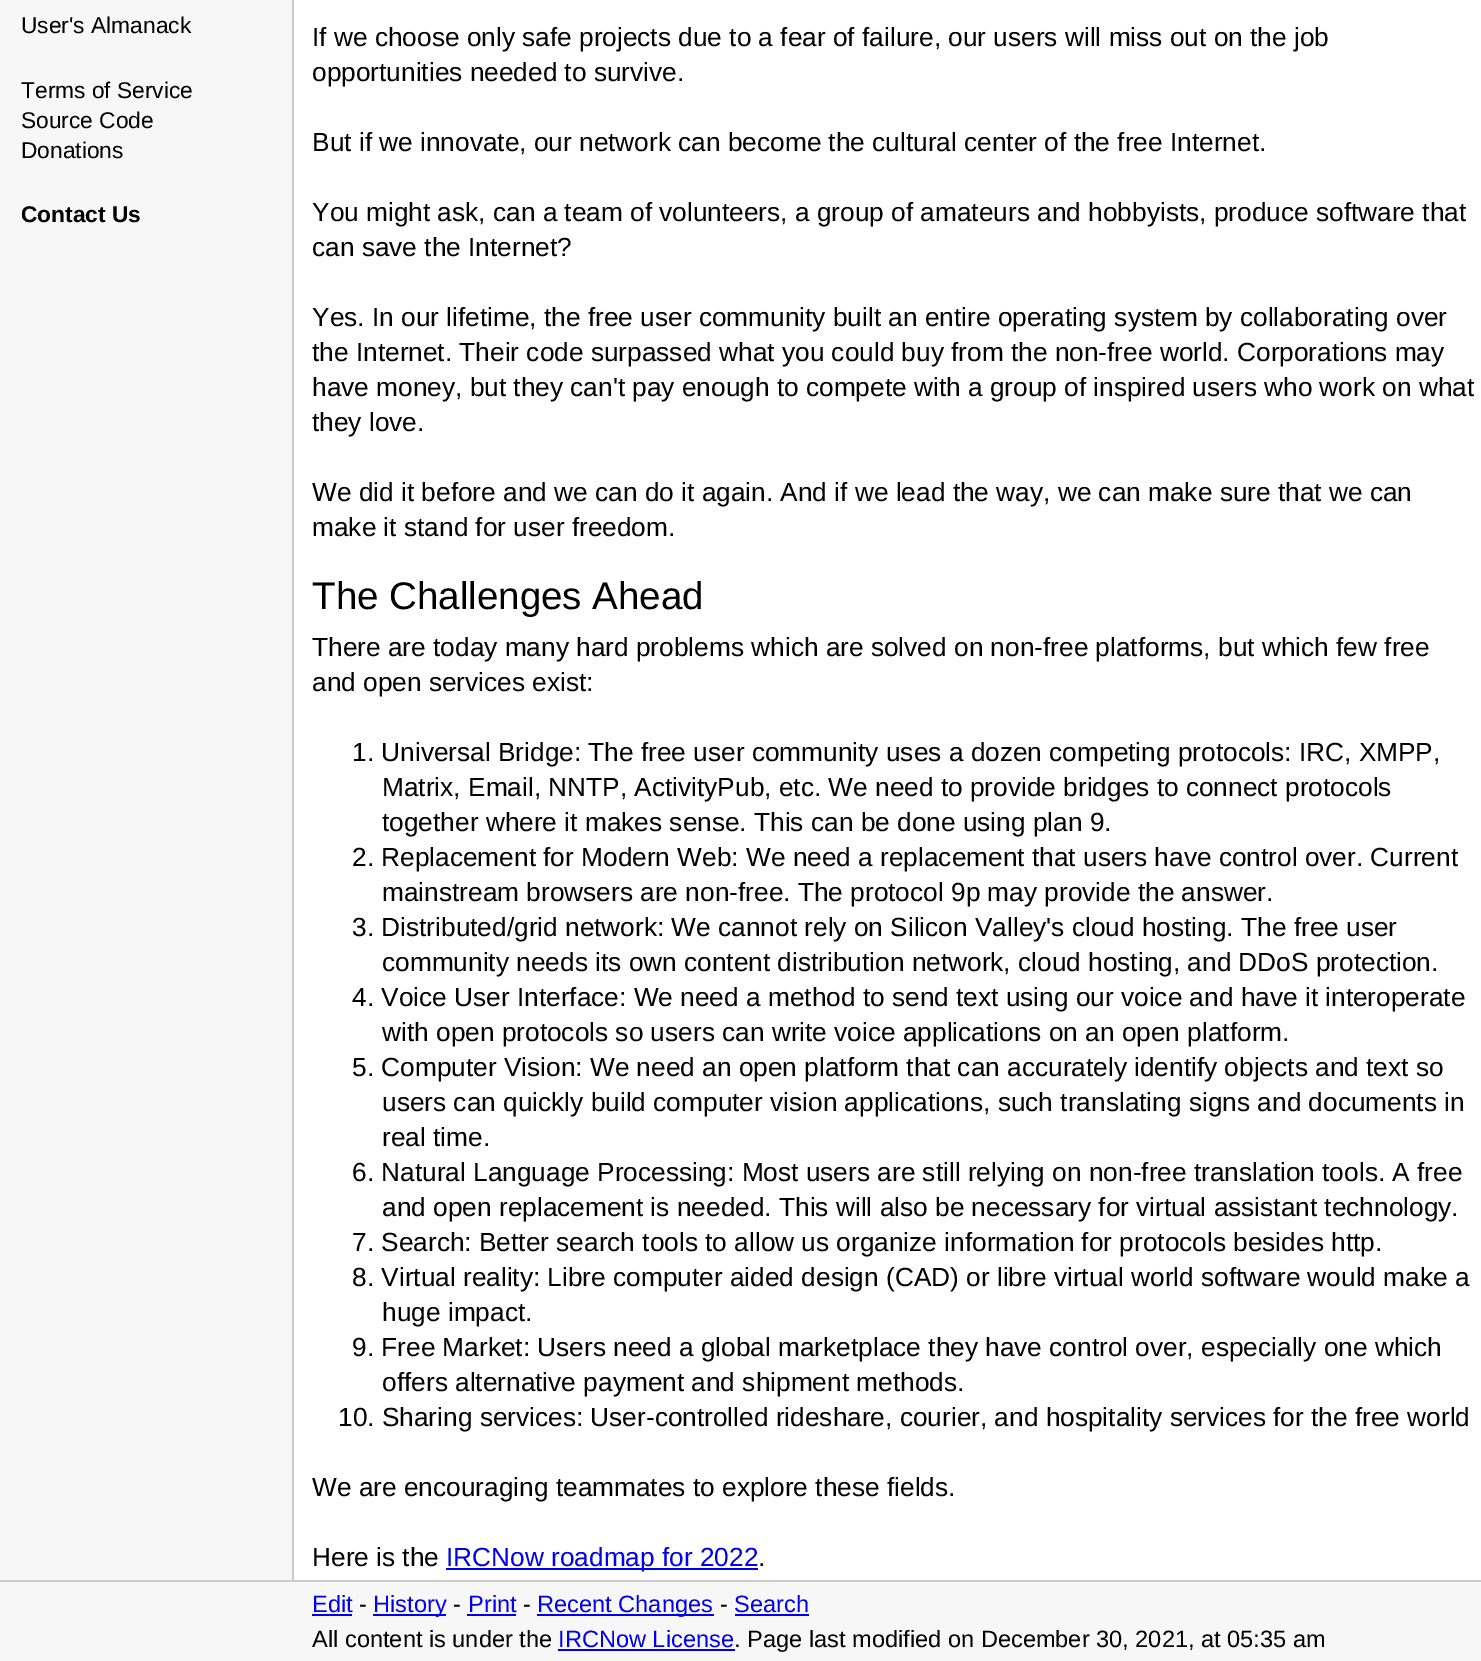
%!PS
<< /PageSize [1481 1661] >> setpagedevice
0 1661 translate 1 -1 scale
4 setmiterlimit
0.969 setgray
0 0 1481 1661 rectfill
0.8 setgray
292 0 2 1580 rectfill
/LiberationSans-Regular [22.75 0 0 -22.75 0 0] selectfont
0 setgray
21 33 moveto (User's Almanack) show
21 98 moveto (Terms of Service) show
21 128 moveto (Source Code) show
21 158 moveto (Donations) show
/LiberationSans-Bold [22.75 0 0 -22.75 0 0] selectfont
21 222 moveto (Contact Us) show
1 setgray
294 0 1187 1580 rectfill
/LiberationSans-Regular [26.25 0 0 -26.25 0 0] selectfont
0 setgray
312 46 moveto (If we choose only safe projects due to a fear of failure, our users will miss out on the job) show
312 81 moveto (opportunities needed to survive.) show
312 151 moveto (But if we innovate, our network can become the cultural center of the free Internet.) show
312 221 moveto (You might ask, can a team of volunteers, a group of amateurs and hobbyists, produce software that) show
312 256 moveto (can save the Internet?) show
312 326 moveto (Yes. In our lifetime, the free user community built an entire operating system by collaborating over) show
312 361 moveto (the Internet. Their code surpassed what you could buy from the non-free world. Corporations may) show
312 396 moveto (have money, but they can't pay enough to compete with a group of inspired users who work on what) show
312 431 moveto (they love.) show
312 501 moveto (We did it before and we can do it again. And if we lead the way, we can make sure that we can) show
312 536 moveto (make it stand for user freedom.) show
/LiberationSans-Regular [38.5 0 0 -38.5 0 0] selectfont
312 609 moveto (The Challenges Ahead) show
/LiberationSans-Regular [26.25 0 0 -26.25 0 0] selectfont
312 656 moveto (There are today many hard problems which are solved on non-free platforms, but which few free) show
312 691 moveto (and open services exist:) show
352 761 moveto (1. Universal Bridge: The free user community uses a dozen competing protocols: IRC, XMPP,) show
382 796 moveto (Matrix, Email, NNTP, ActivityPub, etc. We need to provide bridges to connect protocols) show
382 831 moveto (together where it makes sense. This can be done using plan 9.) show
352 866 moveto (2. Replacement for Modern Web: We need a replacement that users have control over. Current) show
382 901 moveto (mainstream browsers are non-free. The protocol 9p may provide the answer.) show
352 936 moveto (3. Distributed/grid network: We cannot rely on Silicon Valley's cloud hosting. The free user) show
382 971 moveto (community needs its own content distribution network, cloud hosting, and DDoS protection.) show
352 1006 moveto (4. Voice User Interface: We need a method to send text using our voice and have it interoperate) show
382 1041 moveto (with open protocols so users can write voice applications on an open platform.) show
352 1076 moveto (5. Computer Vision: We need an open platform that can accurately identify objects and text so) show
382 1111 moveto (users can quickly build computer vision applications, such translating signs and documents in) show
382 1146 moveto (real time.) show
352 1181 moveto (6. Natural Language Processing: Most users are still relying on non-free translation tools. A free) show
382 1216 moveto (and open replacement is needed. This will also be necessary for virtual assistant technology.) show
352 1251 moveto (7. Search: Better search tools to allow us organize information for protocols besides http.) show
352 1286 moveto (8. Virtual reality: Libre computer aided design \(CAD\) or libre virtual world software would make a) show
382 1321 moveto (huge impact.) show
352 1356 moveto (9. Free Market: Users need a global marketplace they have control over, especially one which) show
382 1391 moveto (offers alternative payment and shipment methods.) show
338 1426 moveto (10. Sharing services: User-controlled rideshare, courier, and hospitality services for the free world) show
312 1496 moveto (We are encouraging teammates to explore these fields.) show
312 1566 moveto (Here is the) show
0 0 0.933 setrgbcolor
446 1568 312 2 rectfill
446 1566 moveto (IRCNow roadmap for 2022) show
0 setgray
758 1566 moveto (.) show
0.8 setgray
0 1580 1481 2 rectfill
/LiberationSans-Regular [23.6 0 0 -23.6 0 0] selectfont
0 0 0.933 setrgbcolor
312 1612 moveto (Edit) show
312 1614 40 2 rectfill
0 setgray
359 1612 moveto (-) show
0 0 0.933 setrgbcolor
373 1614 73 2 rectfill
373 1612 moveto (History) show
0 setgray
453 1612 moveto (-) show
0 0 0.933 setrgbcolor
468 1612 moveto (Print) show
467 1614 49 2 rectfill
0 setgray
523 1612 moveto (-) show
0 0 0.933 setrgbcolor
537 1614 177 2 rectfill
537 1612 moveto (Recent Changes) show
0 setgray
720 1612 moveto (-) show
0 0 0.933 setrgbcolor
734 1612 moveto (Search) show
735 1614 74 2 rectfill
0 setgray
312 1647 moveto (All content is under the) show
0 0 0.933 setrgbcolor
558 1647 moveto (IRCNow License) show
558 1649 177 2 rectfill
0 setgray
734 1647 moveto (. Page last modified on December 30, 2021, at 05:35 am) show
showpage
